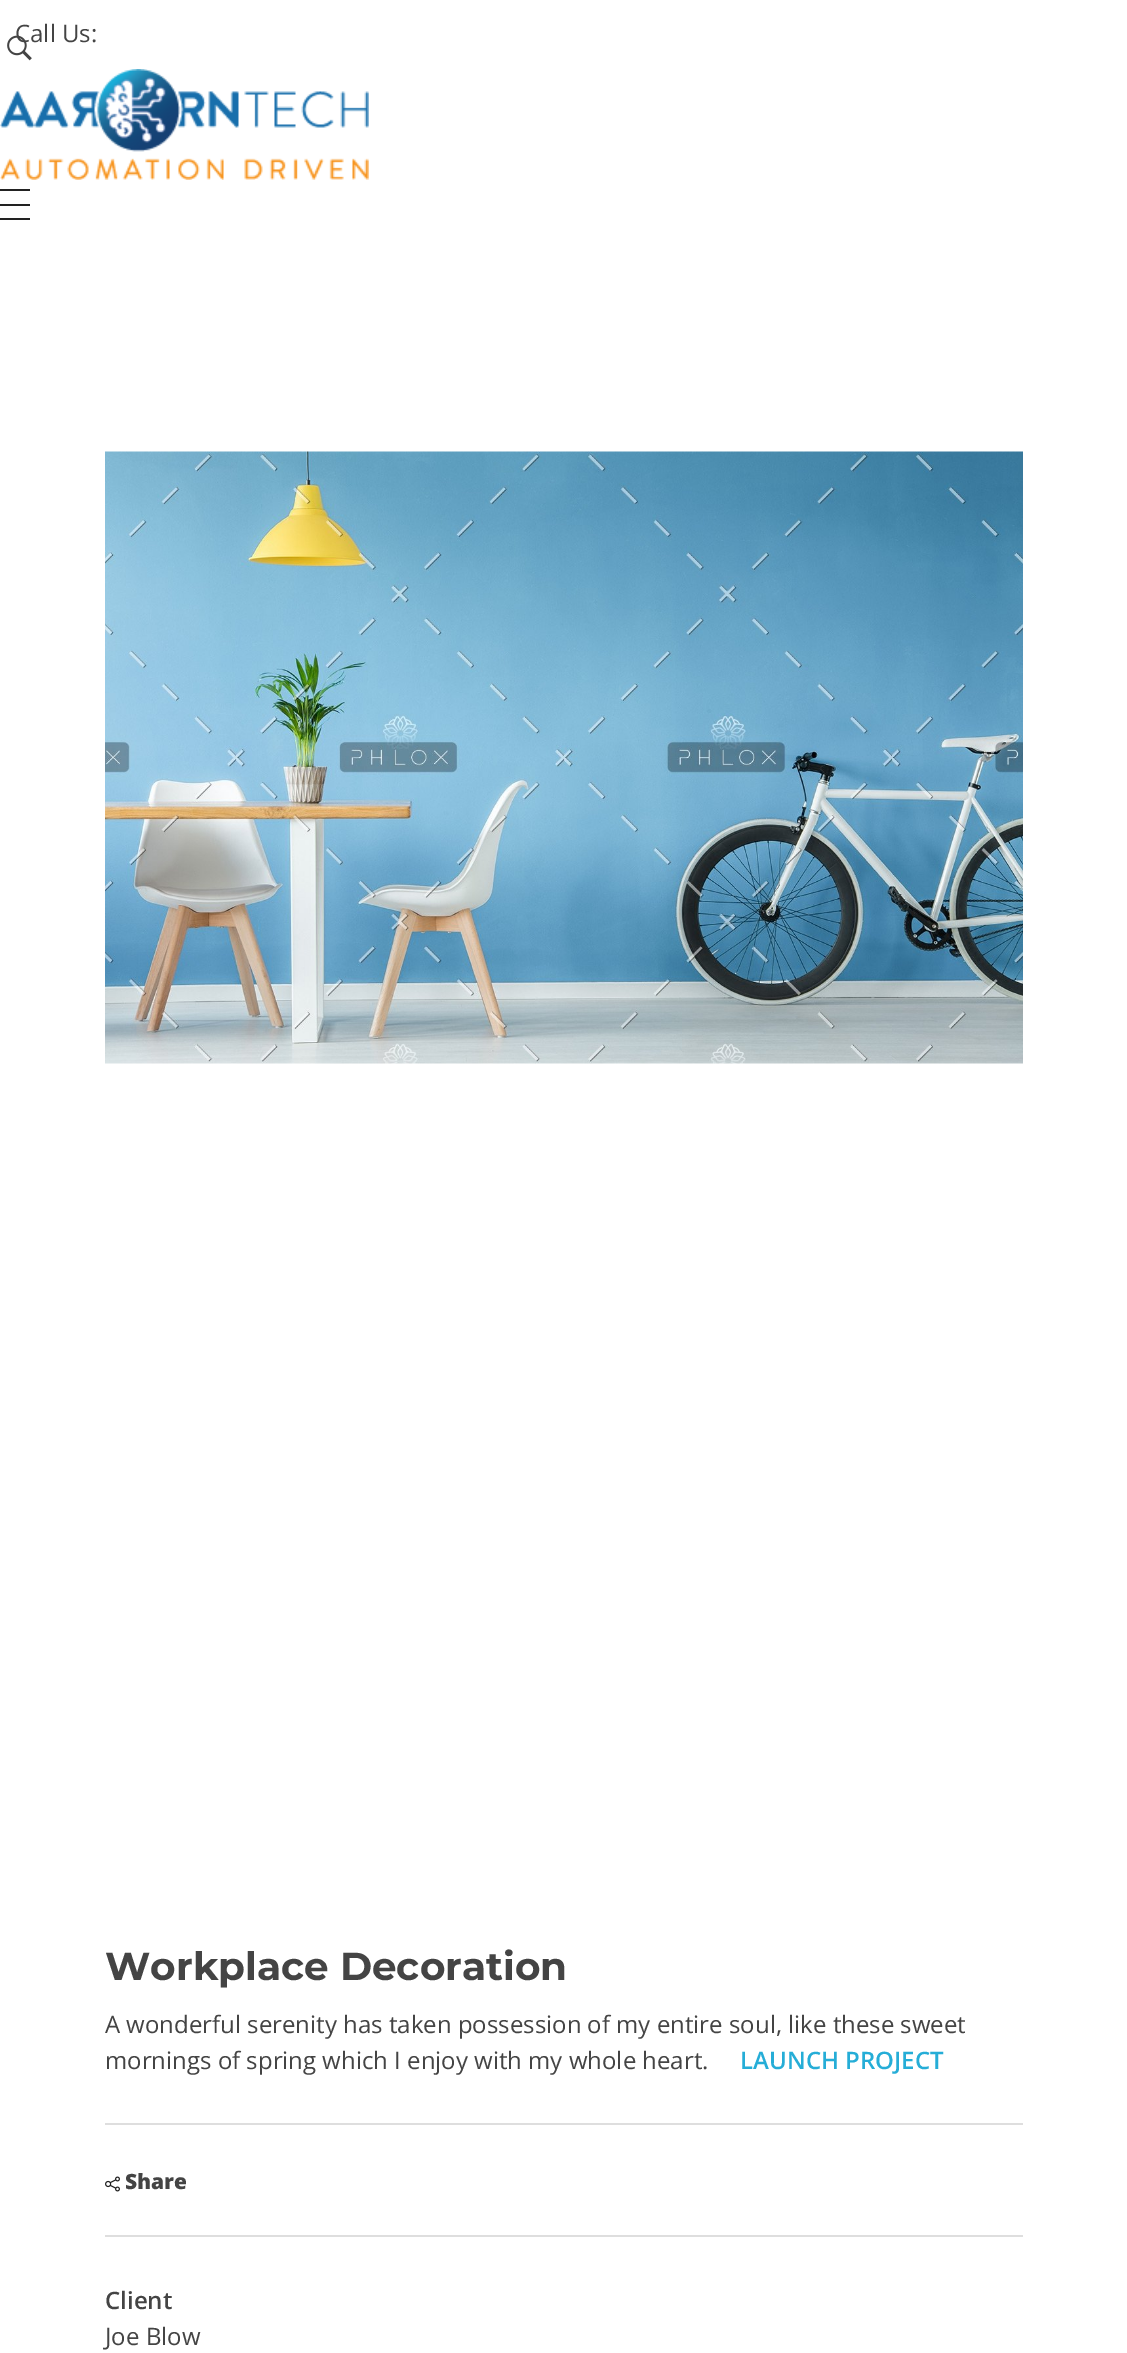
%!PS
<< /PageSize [1127 2353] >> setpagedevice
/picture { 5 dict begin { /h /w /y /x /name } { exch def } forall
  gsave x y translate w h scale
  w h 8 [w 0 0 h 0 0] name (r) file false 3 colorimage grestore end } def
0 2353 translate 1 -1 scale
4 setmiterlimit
1 setgray
0 0 1127 2353 rectfill
/OpenSans-Regular [24 0 0 -24 0 0] selectfont
0.267 setgray
15 42 moveto (Call Us:) show
(img1.rgb) 7 35 25 26 picture
(img2.rgb) 0 69 369 111 picture
0.133 setgray
0 189 30 2 rectfill
0 204 30 2 rectfill
0 218 30 2 rectfill
(img3.rgb) 105 451 918 613 picture
/Montserrat-Bold [39 0 0 -39 0 0] selectfont
0.267 setgray
105 1980 moveto (Workplace Decoration) show
/OpenSans-Regular [24 0 0 -24 0 0] selectfont
105 2033 moveto (A wonderful serenity has taken possession of my entire soul, like these sweet) show
105 2069 moveto (mornings of spring which I enjoy with my whole heart.) show
/OpenSans-SemiBold [24 0 0 -24 0 0] selectfont
0.145 0.678 0.843 setrgbcolor
740 2069 moveto (LAUNCH PROJECT) show
0.871 setgray
105 2123 918 2 rectfill
105 2235 918 2 rectfill
(img4.rgb) 105 2176 15 16 picture
/OpenSans-ExtraBold [21 0 0 -21 0 0] selectfont
0.267 setgray
125 2189 moveto (Share) show
/OpenSans-SemiBold [24 0 0 -24 0 0] selectfont
105 2309 moveto (Client) show
/OpenSans-Regular [24 0 0 -24 0 0] selectfont
105 2345 moveto (Joe Blow) show
showpage
